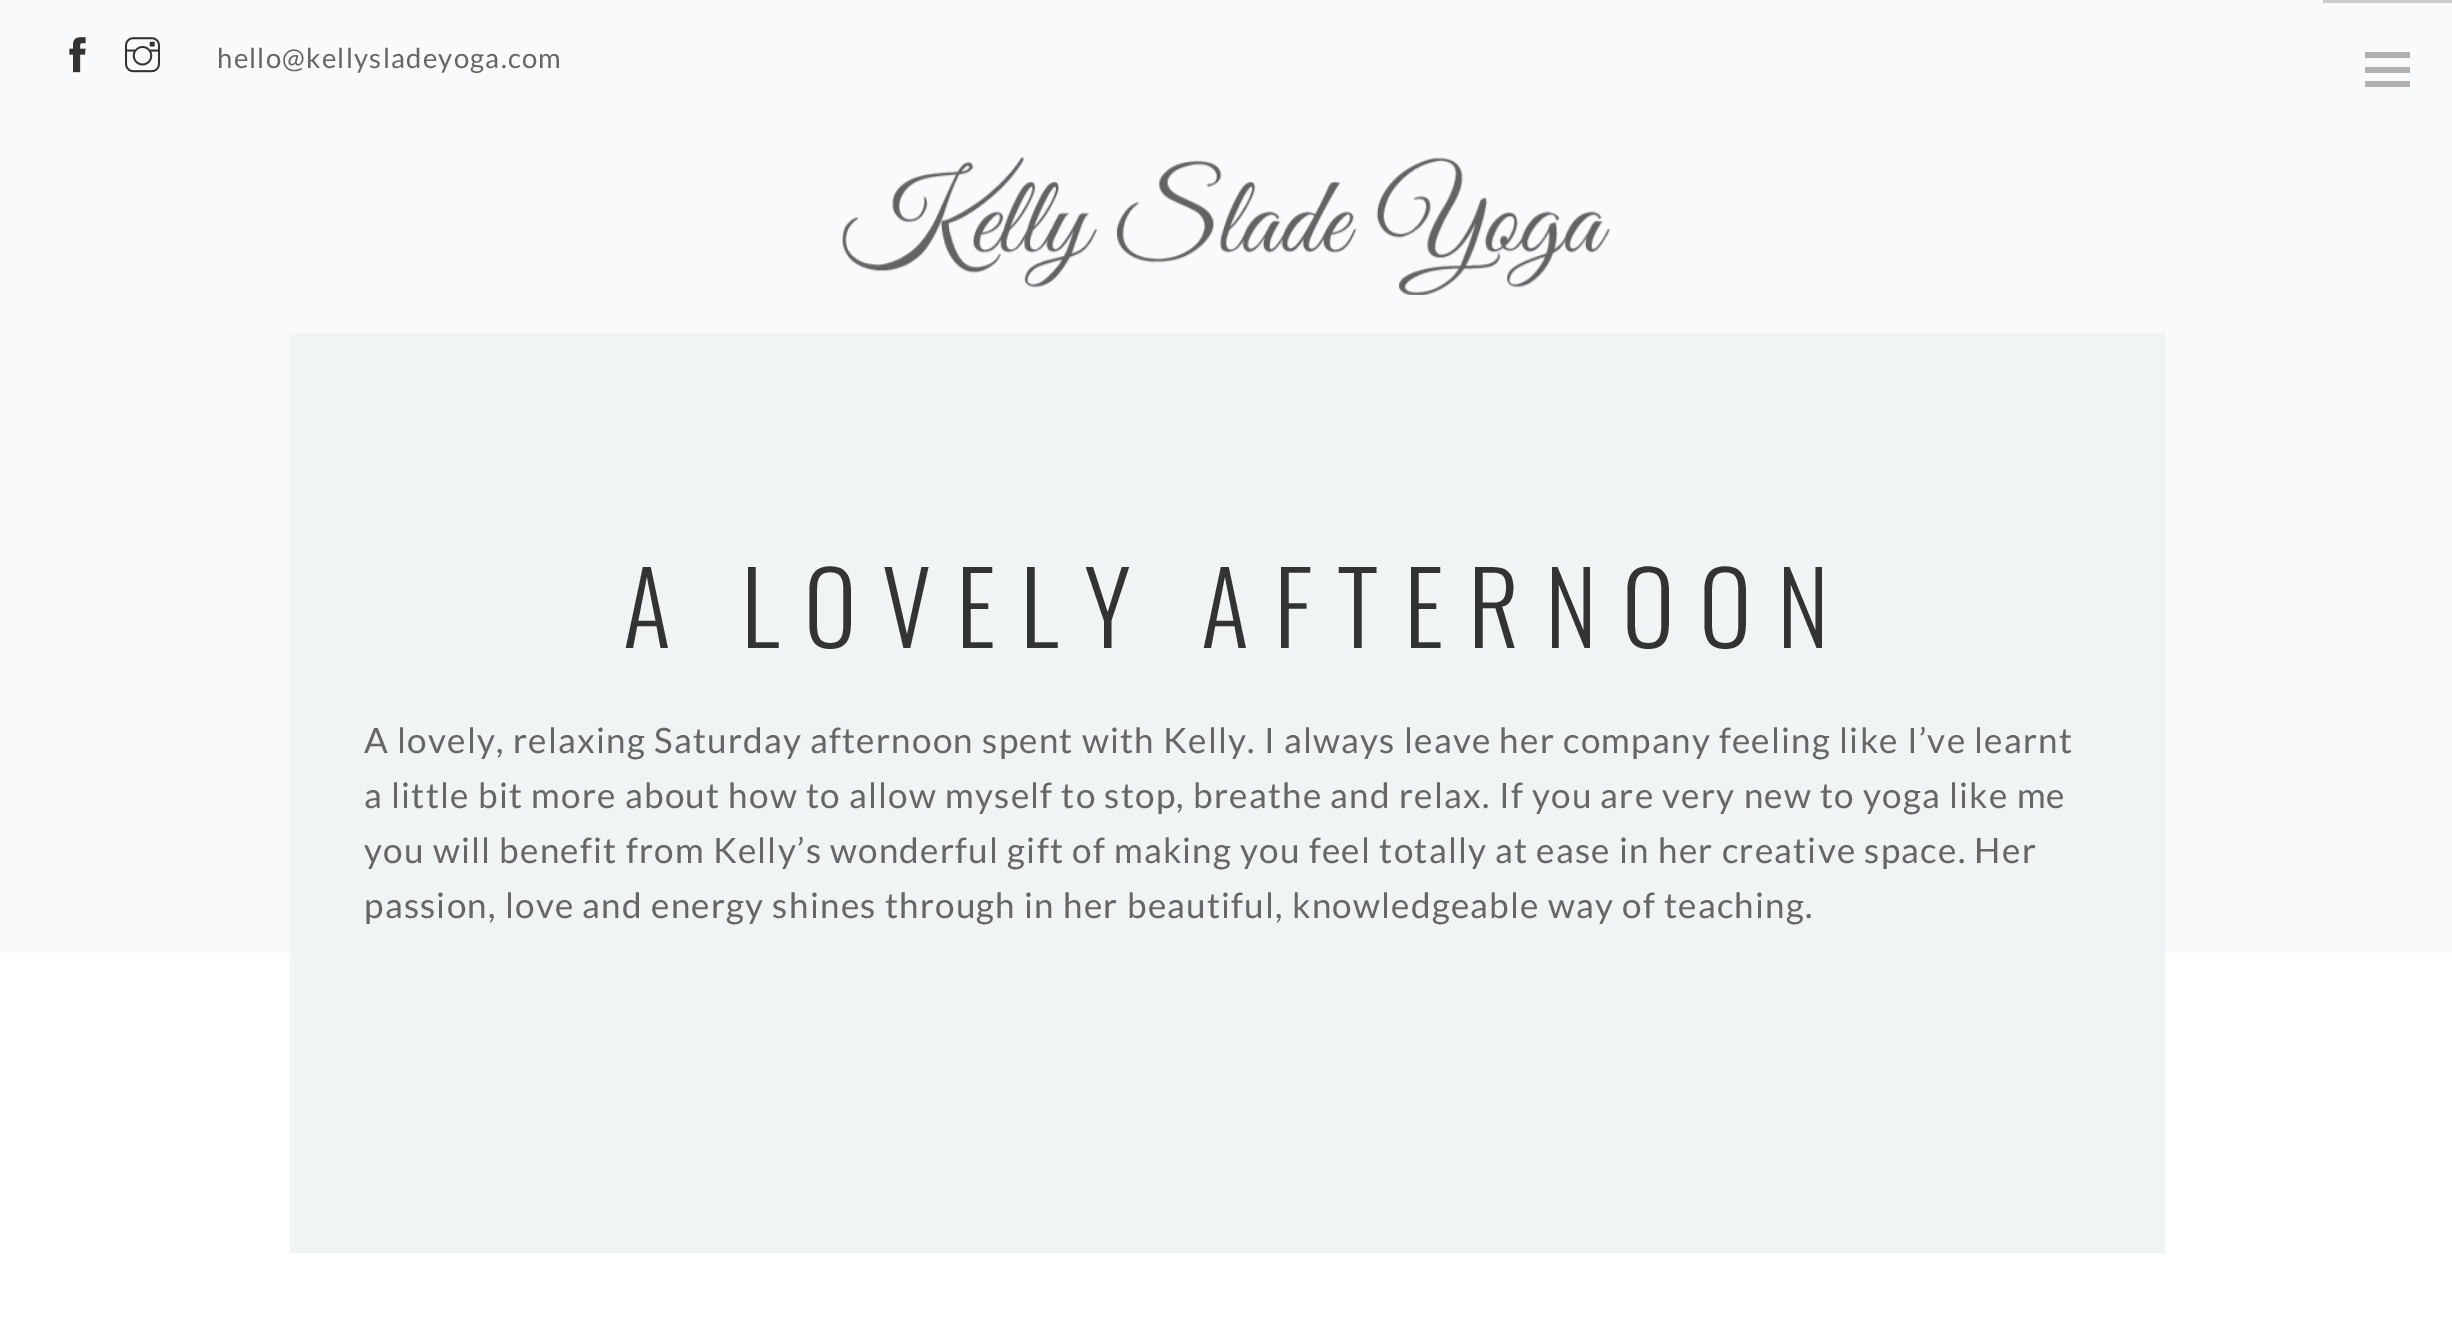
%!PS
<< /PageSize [2452 1343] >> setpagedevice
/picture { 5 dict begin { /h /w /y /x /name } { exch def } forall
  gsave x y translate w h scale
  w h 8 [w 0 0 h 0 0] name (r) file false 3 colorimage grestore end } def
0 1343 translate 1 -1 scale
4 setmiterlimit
0.976 0.98 0.984 setrgbcolor
0 0 2452 1343 rectfill
(img1.rgb) 69 37 17 36 picture
(img2.rgb) 125 37 35 36 picture
/Lato-Regular [27.5 0 0 -27.5 0 0] selectfont
0.4 setgray
217 68 moveto 1.25 0 (hello@kellysladeyoga.com) ashow
0.8 setgray
2323 0 129 3 rectfill
0.69 0.69 0.694 setrgbcolor
newpath 2410 52 moveto 2410 58 lineto 2365 58 lineto 2365 52 lineto closepath 2365 73 moveto 2410 73 lineto 2410 67 lineto 2365 67 lineto closepath 2365 87 moveto 2410 87 lineto 2410 81 lineto 2365 81 lineto closepath fill
(img3.rgb) 842 157 768 138 picture
1 setgray
0 953 2452 390 rectfill
0.945 0.957 0.961 setrgbcolor
290 333 1875 920 rectfill
/Oswald-Light [100 0 0 -100 0 0] selectfont
0.2 setgray
623 648 moveto 25 0 (A LOVELY AFTERNOON) ashow
/Lato-Regular [35 0 0 -35 0 0] selectfont
0.4 setgray
364 753 moveto 1.25 0 (A lovely, relaxing Saturday afternoon spent with Kelly. I always leave her company feeling like I’ve learnt) ashow
364 808 moveto 1.25 0 (a little bit more about how to allow myself to stop, breathe and relax. If you are very new to yoga like me) ashow
364 863 moveto 1.25 0 (you will benefit from Kelly’s wonderful gift of making you feel totally at ease in her creative space. Her) ashow
364 918 moveto 1.25 0 (passion, love and energy shines through in her beautiful, knowledgeable way of teaching.) ashow
showpage
